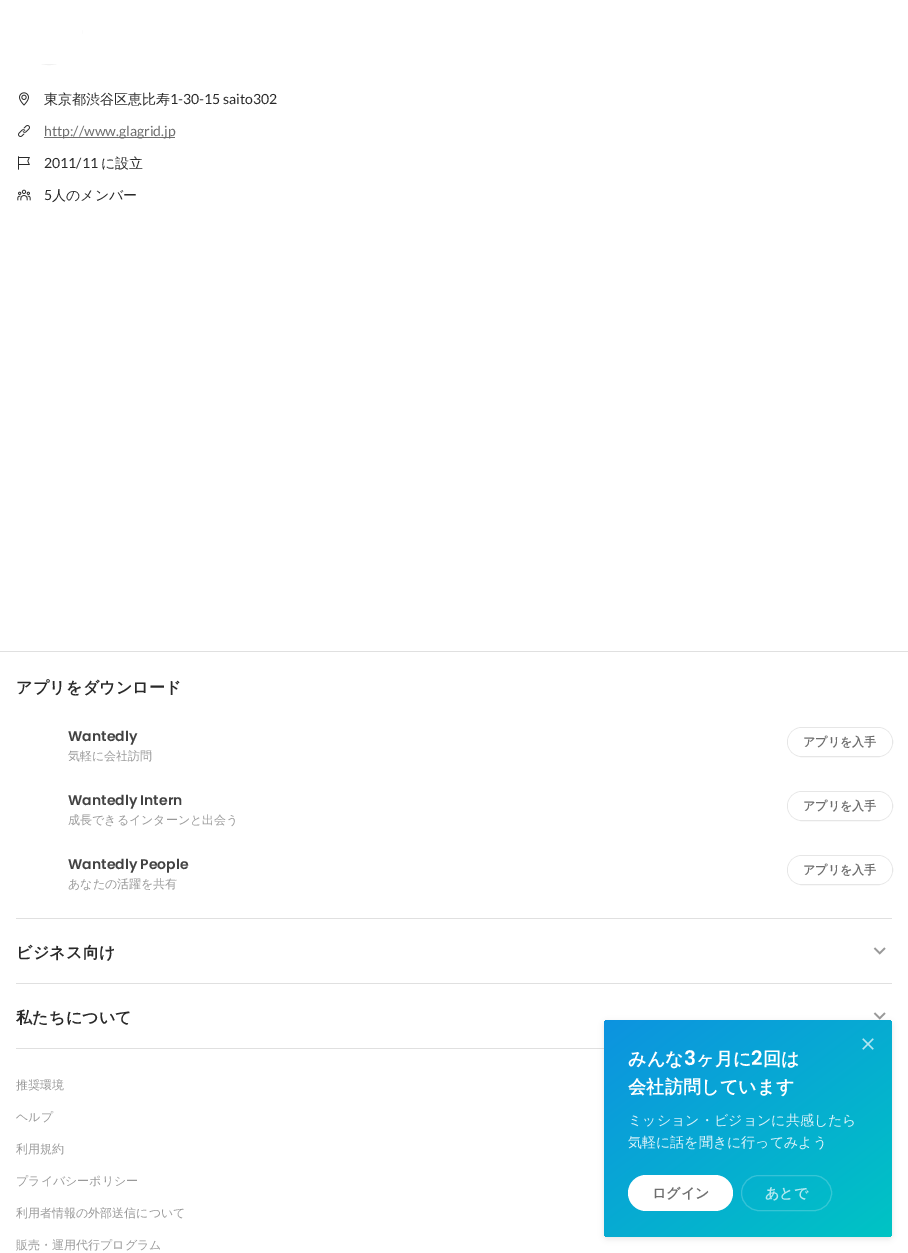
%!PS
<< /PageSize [908 1253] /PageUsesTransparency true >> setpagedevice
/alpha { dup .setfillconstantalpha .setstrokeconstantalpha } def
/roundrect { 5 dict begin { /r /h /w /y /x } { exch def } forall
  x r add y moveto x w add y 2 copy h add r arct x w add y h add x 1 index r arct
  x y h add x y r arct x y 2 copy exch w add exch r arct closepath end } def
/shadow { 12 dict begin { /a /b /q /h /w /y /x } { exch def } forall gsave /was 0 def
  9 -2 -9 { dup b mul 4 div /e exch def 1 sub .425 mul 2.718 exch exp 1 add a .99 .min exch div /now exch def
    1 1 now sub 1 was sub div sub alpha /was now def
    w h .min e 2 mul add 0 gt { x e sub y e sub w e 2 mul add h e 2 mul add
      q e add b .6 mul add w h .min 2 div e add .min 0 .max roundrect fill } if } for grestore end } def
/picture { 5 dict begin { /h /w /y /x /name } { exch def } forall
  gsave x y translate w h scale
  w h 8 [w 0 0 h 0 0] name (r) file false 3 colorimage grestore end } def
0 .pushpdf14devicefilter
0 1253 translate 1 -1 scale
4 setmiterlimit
1 setgray
0 0 908 1253 rectfill
0.941 setgray
newpath 49 32 32.5 0 360 arc closepath stroke
1 setgray
16 0 66 64 rectfill
(img1.rgb) 19 92 10 14 picture
/WenQuanYiZenHei-Medium [14 0 0 -14 0 0] selectfont
0.161 setgray
44 104 moveto (東京都渋谷区恵比寿) show
/Lato-Regular [14 0 0 -14 0 0] selectfont
170 104 moveto (1-30-15 saito302) show
(img2.rgb) 18 125 12 12 picture
0.439 setgray
44 137 131 1 rectfill
0.431 setgray
44 136 moveto (http://www.glagrid.jp) show
(img3.rgb) 18 156 12 14 picture
0.161 setgray
44 168 moveto (2011/11) show
/WenQuanYiZenHei-Medium [14 0 0 -14 0 0] selectfont
101 168 moveto (に設立) show
(img4.rgb) 17 189 14 12 picture
/Lato-Regular [14 0 0 -14 0 0] selectfont
44 200 moveto (5) show
/WenQuanYiZenHei-Medium [14 0 0 -14 0 0] selectfont
52 200 moveto (人のメンバー) show
0.878 setgray
0 651 908 1 rectfill
/WenQuanYiZenHei-Bold [16 0 0 -16 0 0] selectfont
0.161 setgray
16 693 moveto 0.25 0 (アプリをダウンロード) ashow
/Poppins-SemiBold [14 0 0 -14 0 0] selectfont
0.259 setgray
68 741 moveto (Wantedly) show
/WenQuanYiZenHei-Medium [12 0 0 -12 0 0] selectfont
0.6 setgray
68 760 moveto (気軽に会社訪問) show
0.902 setgray
787.5 727.5 105 29 14.5 roundrect stroke
1 setgray
788 728 104 28 14 roundrect fill
/WenQuanYiZenHei-Bold [12 0 0 -12 0 0] selectfont
0.431 setgray
803 746 moveto (アプリを入手) show
/Poppins-SemiBold [14 0 0 -14 0 0] selectfont
0.259 setgray
68 805 moveto (Wantedly Intern) show
/WenQuanYiZenHei-Medium [12 0 0 -12 0 0] selectfont
0.6 setgray
68 824 moveto (成長できるインターンと出会う) show
0.902 setgray
787.5 791.5 105 29 14.5 roundrect stroke
1 setgray
788 792 104 28 14 roundrect fill
/WenQuanYiZenHei-Bold [12 0 0 -12 0 0] selectfont
0.431 setgray
803 810 moveto (アプリを入手) show
/Poppins-SemiBold [14 0 0 -14 0 0] selectfont
0.259 setgray
68 869 moveto (Wantedly People) show
/WenQuanYiZenHei-Medium [12 0 0 -12 0 0] selectfont
0.6 setgray
68 888 moveto (あなたの活躍を共有) show
0.902 setgray
787.5 855.5 105 29 14.5 roundrect stroke
1 setgray
788 856 104 28 14 roundrect fill
/WenQuanYiZenHei-Bold [12 0 0 -12 0 0] selectfont
0.431 setgray
803 874 moveto (アプリを入手) show
0.878 setgray
16 918 876 1 rectfill
/WenQuanYiZenHei-Bold [16 0 0 -16 0 0] selectfont
0.161 setgray
16 958 moveto 0.25 0 (ビジネス向け) ashow
(img5.rgb) 873 947 13 8 picture
0.878 setgray
16 983 876 1 rectfill
0.161 setgray
16 1023 moveto 0.25 0 (私たちについて) ashow
(img5.rgb) 873 1012 13 8 picture
0.878 setgray
16 1048 588 1 rectfill
/WenQuanYiZenHei-Medium [12 0 0 -12 0 0] selectfont
0.6 setgray
16 1089 moveto (推奨環境) show
16 1121 moveto (ヘルプ) show
16 1153 moveto (利用規約) show
16 1185 moveto (プライバシーポリシー) show
16 1217 moveto (利用者情報の外部送信について) show
16 1249 moveto (販売・運用代行プログラム) show
0 setgray
604 1022 288 217 4 3 0.1 shadow
gsave 604 1020 288 217 4 roundrect clip newpath
<< /ShadingType 2 /ColorSpace /DeviceRGB /Coords [644 990 852 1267] /Extend [true true] /Function << /FunctionType 2 /Domain [0 1] /C0 [0.051 0.576 0.878] /C1 [0 0.769 0.769] /N 1 >> >> shfill grestore
(img6.rgb) 862 1038 12 12 picture
/WenQuanYiZenHei-Bold [18 0 0 -18 0 0] selectfont
1 setgray
628 1065 moveto 0.25 0 (みんな) ashow
/Poppins-SemiBold [20 0 0 -20 0 0] selectfont
684 1065 moveto 0.25 0 (3) ashow
/WenQuanYiZenHei-Bold [18 0 0 -18 0 0] selectfont
696 1065 moveto 0.25 0 (ヶ月に) ashow
/Poppins-SemiBold [20 0 0 -20 0 0] selectfont
751 1065 moveto 0.25 0 (2) ashow
/WenQuanYiZenHei-Bold [18 0 0 -18 0 0] selectfont
763 1065 moveto 0.25 0 (回は) ashow
628 1093 moveto 0.25 0 (会社訪問しています) ashow
/WenQuanYiZenHei-Medium [14 0 0 -14 0 0] selectfont
0.863 0.949 0.976 setrgbcolor
628 1125 moveto (ミッション) show
700 1125 moveto (・) show
714 1125 moveto (ビジョンに共感したら) show
628 1147 moveto (気軽に話を聞きに行ってみよう) show
1 setgray
628 1175 105 36 18 roundrect fill
/WenQuanYiZenHei-Bold [14 0 0 -14 0 0] selectfont
0.431 setgray
652 1198 moveto (ログイン) show
0.2 alpha
1 setgray
741.5 1175.5 90 35 17.5 roundrect stroke
1 alpha
0.706 0.914 0.941 setrgbcolor
765 1198 moveto (あとで) show
.poppdf14devicefilter showpage
